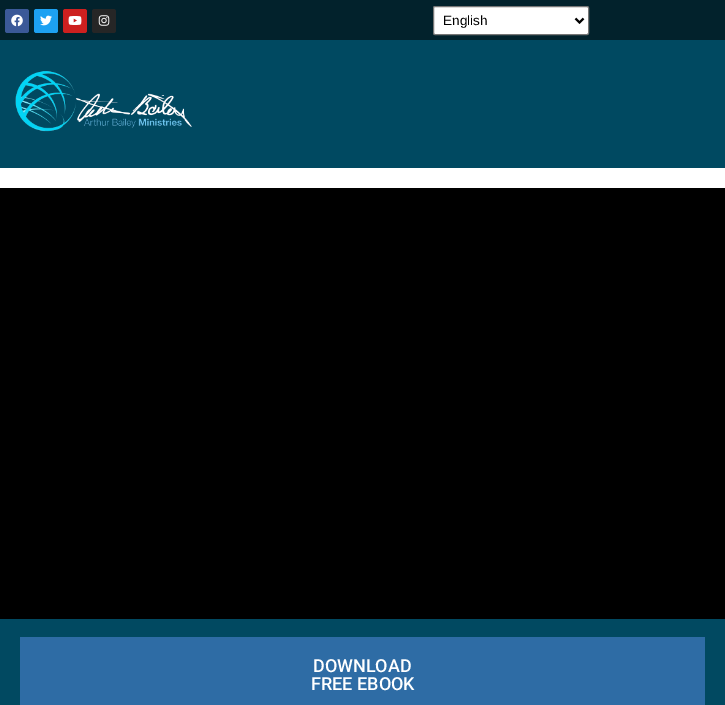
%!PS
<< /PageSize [725 705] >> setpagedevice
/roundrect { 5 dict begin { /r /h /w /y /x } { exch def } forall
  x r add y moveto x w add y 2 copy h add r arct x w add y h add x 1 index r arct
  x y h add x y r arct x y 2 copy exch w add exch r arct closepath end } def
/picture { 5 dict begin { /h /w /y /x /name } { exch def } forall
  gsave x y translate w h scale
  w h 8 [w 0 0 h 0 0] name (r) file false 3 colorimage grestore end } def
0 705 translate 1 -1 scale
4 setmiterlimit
1 setgray
0 0 725 705 rectfill
0.008 0.133 0.173 setrgbcolor
0 0 725 40 rectfill
0.231 0.349 0.596 setrgbcolor
5 9 24 24 2.5 roundrect fill
(img1.rgb) 11 14 12 13 picture
0.114 0.631 0.949 setrgbcolor
34 9 24 24 2.5 roundrect fill
(img2.rgb) 40 15 12 11 picture
0.804 0.125 0.122 setrgbcolor
63 9 24 24 2.5 roundrect fill
(img3.rgb) 68 16 14 9 picture
0.149 setgray
92 9 24 24 2.5 roundrect fill
(img4.rgb) 98 15 12 11 picture
1 setgray
433.5 6.5 155 28 1.5 roundrect gsave fill grestore
0.463 setgray
stroke
0 setgray
2 setlinewidth
newpath 575.5 18.5 moveto 579.5 22.5 lineto 583.5 18.5 lineto stroke
/LiberationSans-Regular [13.5 0 0 -13.5 0 0] selectfont
443 25 moveto (English) show
0 0.286 0.38 setrgbcolor
0 40 725 128 rectfill
(img5.rgb) 15 71 177 61 picture
0 setgray
0 188 725 431 rectfill
0.004 0.286 0.38 setrgbcolor
0 619 725 86 rectfill
0.18 0.424 0.647 setrgbcolor
20 637 685 68 rectfill
/Roboto-Medium [18 0 0 -18 0 0] selectfont
1 setgray
313 672 moveto (DOWNLOAD) show
311 690 moveto (FREE EBOOK) show
showpage
